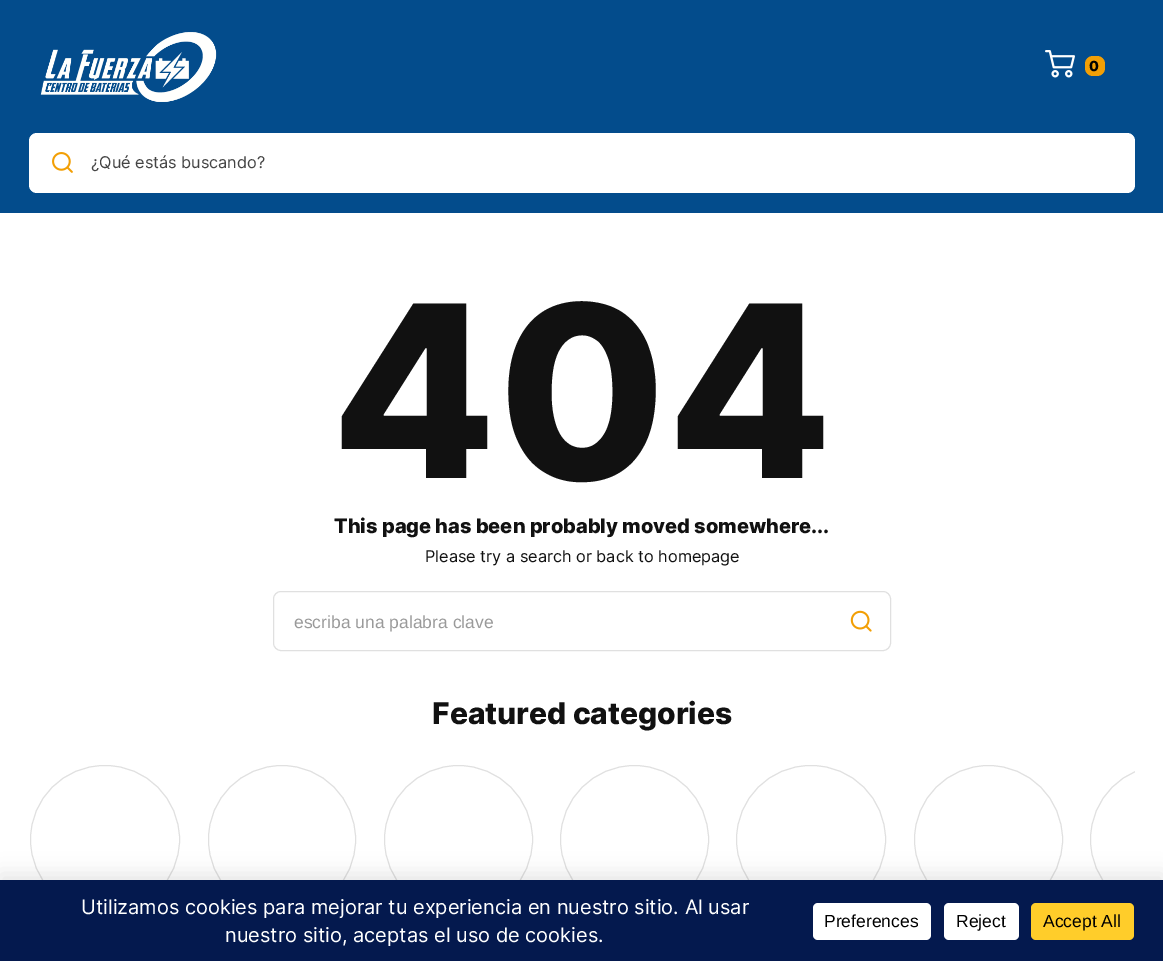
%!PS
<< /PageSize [1163 961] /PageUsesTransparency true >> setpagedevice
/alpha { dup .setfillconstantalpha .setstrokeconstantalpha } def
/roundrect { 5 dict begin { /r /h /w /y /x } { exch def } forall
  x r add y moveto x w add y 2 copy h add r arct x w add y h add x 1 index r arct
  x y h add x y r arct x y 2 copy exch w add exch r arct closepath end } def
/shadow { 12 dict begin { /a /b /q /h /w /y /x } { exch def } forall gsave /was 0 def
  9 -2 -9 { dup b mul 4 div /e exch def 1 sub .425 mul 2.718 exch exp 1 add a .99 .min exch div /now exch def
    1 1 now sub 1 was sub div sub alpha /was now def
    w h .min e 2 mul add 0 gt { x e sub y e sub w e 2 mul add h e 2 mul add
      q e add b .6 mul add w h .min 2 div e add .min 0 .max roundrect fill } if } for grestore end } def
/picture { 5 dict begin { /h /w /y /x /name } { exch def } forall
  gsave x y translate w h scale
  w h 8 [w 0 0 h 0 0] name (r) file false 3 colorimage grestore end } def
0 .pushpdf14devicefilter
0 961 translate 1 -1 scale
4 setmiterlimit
1 setgray
0 0 1163 961 rectfill
0.012 0.298 0.549 setrgbcolor
0 0 1163 213 rectfill
(img1.rgb) 40 32 177 70 picture
(img2.rgb) 1045 50 30 28 picture
0.949 0.624 0.02 setrgbcolor
1085 56 20 20 8 roundrect fill
/Inter-ExtraBold [14 0 0 -14 0 0] selectfont
0 setgray
1089 71 moveto (0) show
1 setgray
29 133 1106 60 8 roundrect fill
(img3.rgb) 52 152 21 21 picture
/Inter-Regular [16.25 0 0 -16.25 0 0] selectfont
0.267 setgray
91 168 moveto (¿Qué estás buscando?) show
/Inter-ExtraBold [240 0 0 -240 0 0] selectfont
0.067 setgray
331 478 moveto (404) show
/Inter-ExtraBold [20 0 0 -20 0 0] selectfont
334 533 moveto (This page has been probably moved somewhere...) show
/Inter-Regular [16.25 0 0 -16.25 0 0] selectfont
425 562 moveto (Please try a search or back to homepage) show
0.878 setgray
273.5 591.5 617 59 7.5 roundrect stroke
/LiberationSans-Regular [17.5 0 0 -17.5 0 0] selectfont
0.604 setgray
294 628 moveto (escriba una palabra clave) show
(img4.rgb) 850 610 22 22 picture
/Inter-ExtraBold [30 0 0 -30 0 0] selectfont
0.067 setgray
432 724 moveto (Featured categories) show
0.878 setgray
30.5 765.5 149 148 74 roundrect stroke
208.5 765.5 147 148 73.5 roundrect stroke
newpath 458.5 839.5 74 0 360 arc closepath stroke
newpath 634.5 839.5 74 0 360 arc closepath stroke
736.5 765.5 149 148 74 roundrect stroke
newpath 988.5 839.5 74 0 360 arc closepath stroke
gsave
29 756 1106 202 rectclip
newpath 1164.5 839.5 74 0 360 arc closepath stroke
grestore
0 setgray
0 874 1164 67 0 10 0.1 shadow
0.016 0.098 0.306 setrgbcolor
0 880 1163 81 rectfill
/Inter-Regular [20 0 0 -20 0 0] selectfont
1 setgray
81 914 moveto (Utilizamos cookies para mejorar tu experiencia en nuestro sitio. Al usar) show
225 942 moveto (nuestro sitio, aceptas el uso de cookies.) show
813 903 118 37 5 roundrect fill
/LiberationSans-Regular [17.5 0 0 -17.5 0 0] selectfont
0 setgray
824 927 moveto (Preferences) show
1 setgray
944 903 75 37 5 roundrect fill
0 setgray
956 927 moveto (Reject) show
1 0.804 0.165 setrgbcolor
1031 903 103 37 5 roundrect fill
0 setgray
1043 927 moveto (Accept All) show
.poppdf14devicefilter showpage
